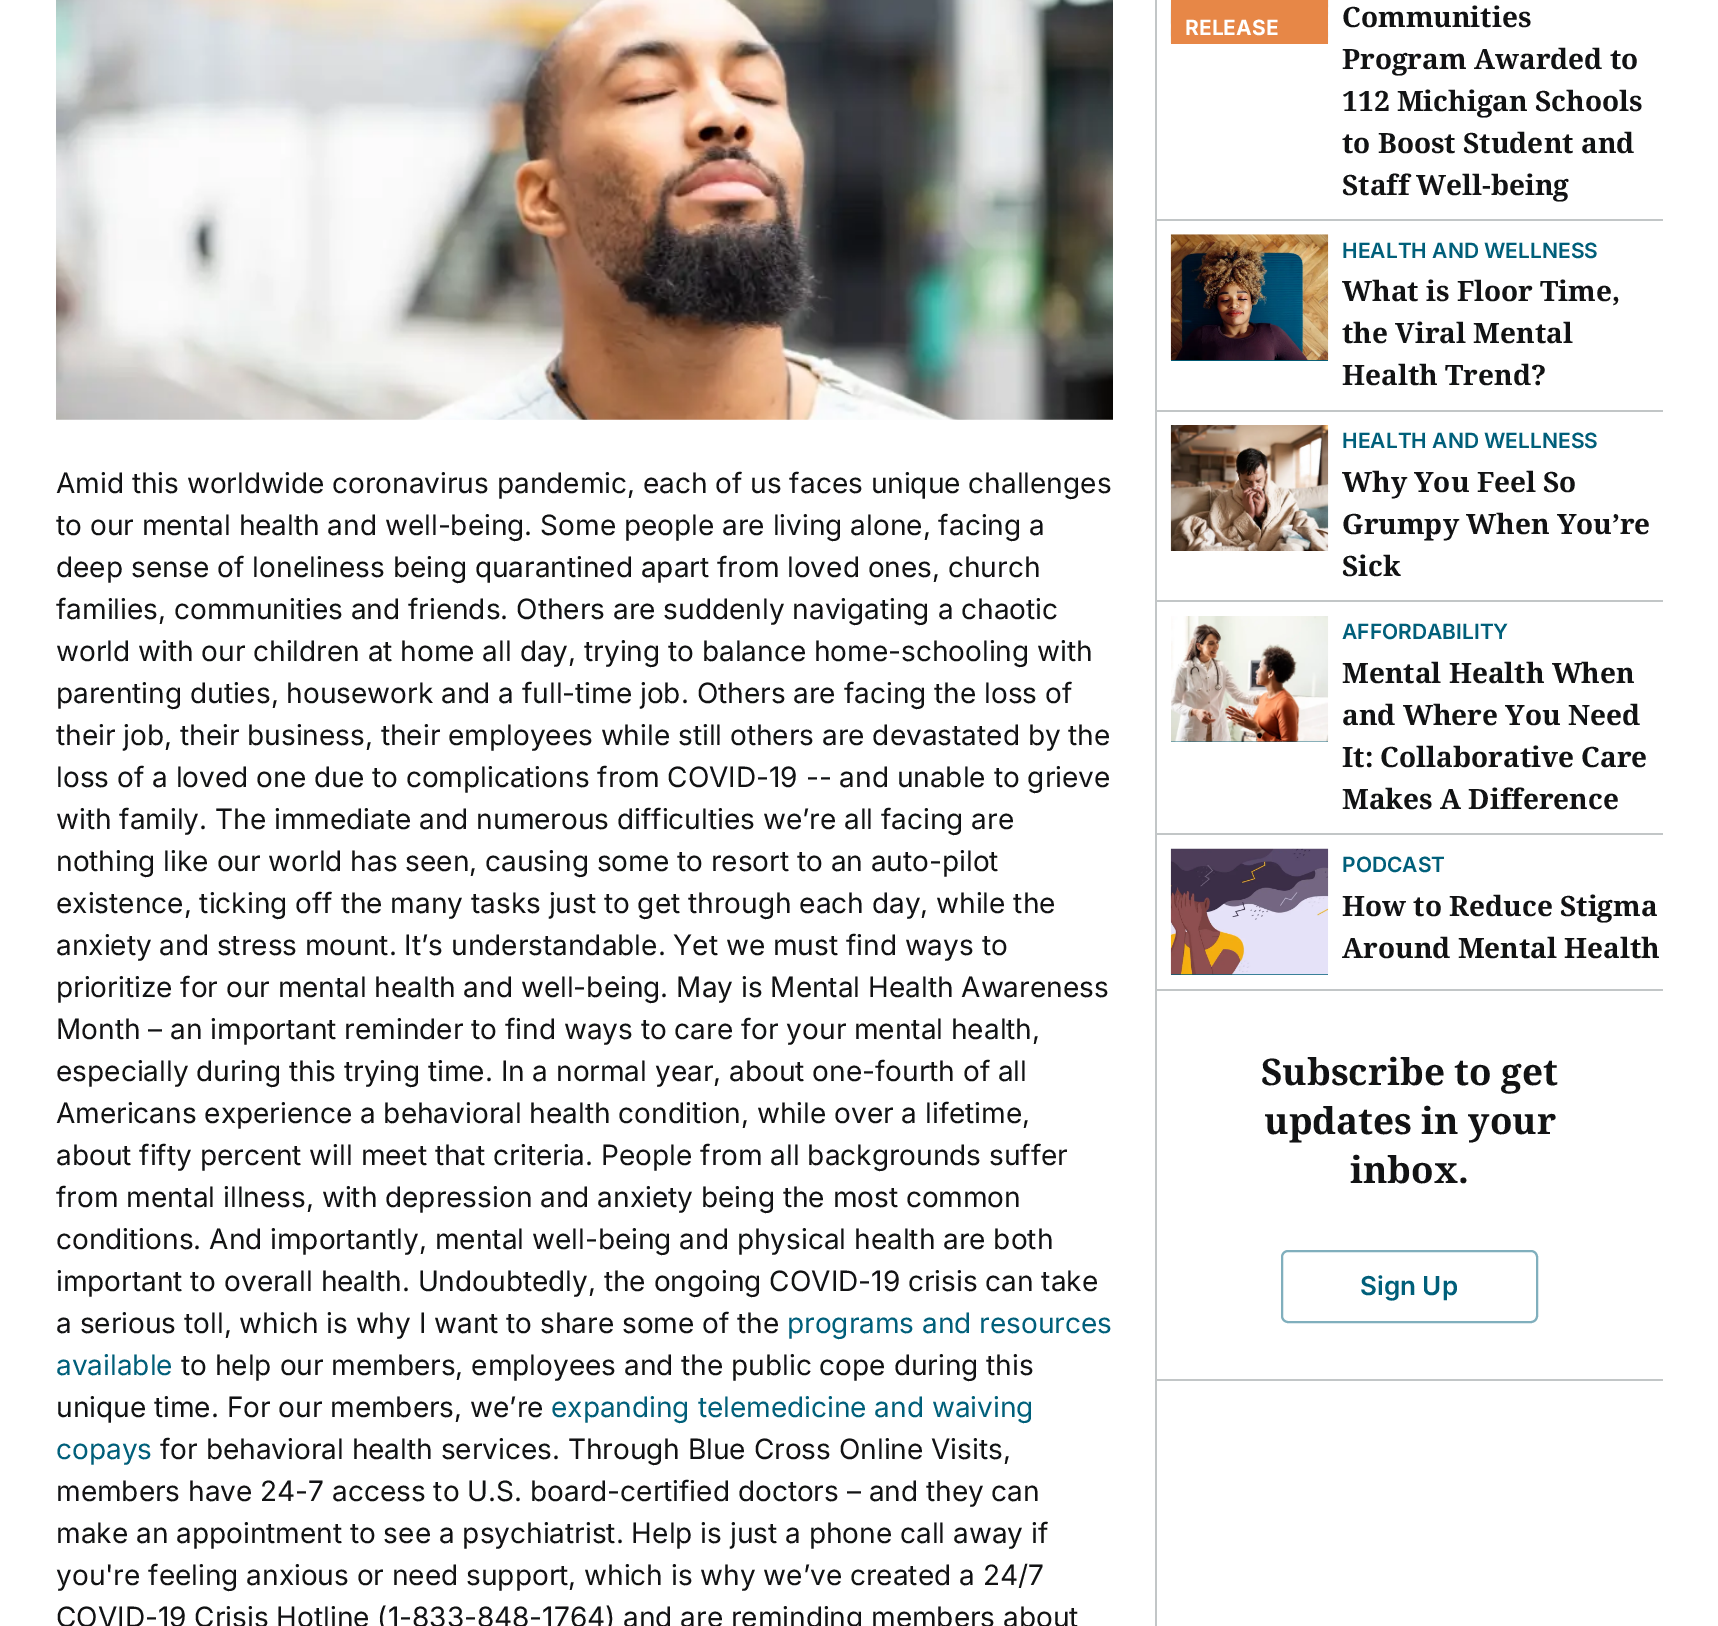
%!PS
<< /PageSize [1718 1626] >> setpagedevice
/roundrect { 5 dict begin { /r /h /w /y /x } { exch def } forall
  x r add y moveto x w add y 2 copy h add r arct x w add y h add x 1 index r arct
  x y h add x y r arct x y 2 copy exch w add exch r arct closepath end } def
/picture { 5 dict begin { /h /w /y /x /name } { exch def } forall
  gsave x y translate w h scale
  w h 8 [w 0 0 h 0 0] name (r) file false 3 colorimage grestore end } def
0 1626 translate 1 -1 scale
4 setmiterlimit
1 setgray
0 0 1718 1626 rectfill
(img1.rgb) 56 0 1057 420 picture
/Inter-Regular [28 0 0 -28 0 0] selectfont
0.071 0.075 0.078 setrgbcolor
56 493 moveto (Amid this worldwide coronavirus pandemic, each of us faces unique challenges) show
56 535 moveto (to our mental health and well-being. Some people are living alone, facing a) show
56 577 moveto (deep sense of loneliness being quarantined apart from loved ones, church) show
56 619 moveto (families, communities and friends. Others are suddenly navigating a chaotic) show
56 661 moveto (world with our children at home all day, trying to balance home-schooling with) show
56 703 moveto (parenting duties, housework and a full-time job. Others are facing the loss of) show
56 745 moveto (their job, their business, their employees while still others are devastated by the) show
56 787 moveto (loss of a loved one due to complications from COVID-19 -- and unable to grieve) show
56 829 moveto (with family. The immediate and numerous difficulties we’re all facing are) show
56 871 moveto (nothing like our world has seen, causing some to resort to an auto-pilot) show
56 913 moveto (existence, ticking off the many tasks just to get through each day, while the) show
56 955 moveto (anxiety and stress mount. It’s understandable. Yet we must find ways to) show
56 997 moveto (prioritize for our mental health and well-being. May is Mental Health Awareness) show
56 1039 moveto (Month – an important reminder to find ways to care for your mental health,) show
56 1081 moveto (especially during this trying time. In a normal year, about one-fourth of all) show
56 1123 moveto (Americans experience a behavioral health condition, while over a lifetime,) show
56 1165 moveto (about fifty percent will meet that criteria. People from all backgrounds suffer) show
56 1207 moveto (from mental illness, with depression and anxiety being the most common) show
56 1249 moveto (conditions. And importantly, mental well-being and physical health are both) show
56 1291 moveto (important to overall health. Undoubtedly, the ongoing COVID-19 crisis can take) show
56 1333 moveto (a serious toll, which is why I want to share some of the) show
0 0.373 0.478 setrgbcolor
787 1333 moveto (programs and resources) show
56 1375 moveto (available) show
0.071 0.075 0.078 setrgbcolor
181 1375 moveto (to help our members, employees and the public cope during this) show
56 1417 moveto (unique time. For our members, we’re) show
0 0.373 0.478 setrgbcolor
551 1417 moveto (expanding telemedicine and waiving) show
56 1459 moveto (copays) show
0.071 0.075 0.078 setrgbcolor
160 1459 moveto (for behavioral health services. Through Blue Cross Online Visits,) show
56 1501 moveto (members have 24-7 access to U.S. board-certified doctors – and they can) show
56 1543 moveto (make an appointment to see a psychiatrist. Help is just a phone call away if) show
56 1585 moveto (you're feeling anxious or need support, which is why we’ve created a 24/7) show
56 1627 moveto (COVID-19 Crisis Hotline \(1-833-848-1764\) and are reminding members about) show
0.761 0.776 0.78 setrgbcolor
1155 0 2 1626 rectfill
(img2.rgb) 1170 0 159 43 picture
0.906 0.529 0.278 setrgbcolor
1171 0 157 44 rectfill
/Inter-Bold [21 0 0 -21 0 0] selectfont
1 setgray
1185 35 moveto (RELEASE) show
/NotoSerif-Bold [28 0 0 -28 0 0] selectfont
0.071 0.075 0.078 setrgbcolor
1342 27 moveto (Communities) show
1342 69 moveto (Program Awarded to) show
1342 111 moveto (112 Michigan Schools) show
1342 153 moveto (to Boost Student and) show
1342 195 moveto (Staff Well-being) show
0.761 0.776 0.78 setrgbcolor
1157 219 506 2 rectfill
0 0.373 0.478 setrgbcolor
1171 360 157 1 rectfill
(img3.rgb) 1170 234 159 127 picture
/Inter-SemiBold [21 0 0 -21 0 0] selectfont
1342 258 moveto (HEALTH AND WELLNESS) show
/NotoSerif-Bold [28 0 0 -28 0 0] selectfont
0.071 0.075 0.078 setrgbcolor
1342 301 moveto (What is Floor Time,) show
1342 343 moveto (the Viral Mental) show
1342 385 moveto (Health Trend?) show
0.761 0.776 0.78 setrgbcolor
1157 410 506 2 rectfill
(img4.rgb) 1170 425 159 126 picture
/Inter-SemiBold [21 0 0 -21 0 0] selectfont
0 0.373 0.478 setrgbcolor
1342 448 moveto (HEALTH AND WELLNESS) show
/NotoSerif-Bold [28 0 0 -28 0 0] selectfont
0.071 0.075 0.078 setrgbcolor
1342 492 moveto (Why You Feel So) show
1342 534 moveto (Grumpy When You’re) show
1342 576 moveto (Sick) show
0.761 0.776 0.78 setrgbcolor
1157 600 506 2 rectfill
0 0.373 0.478 setrgbcolor
1171 741 157 1 rectfill
(img5.rgb) 1171 616 158 126 picture
/Inter-SemiBold [21 0 0 -21 0 0] selectfont
1342 639 moveto (AFFORDABILITY) show
/NotoSerif-Bold [28 0 0 -28 0 0] selectfont
0.071 0.075 0.078 setrgbcolor
1342 683 moveto (Mental Health When) show
1342 725 moveto (and Where You Need) show
1342 767 moveto (It: Collaborative Care) show
1342 809 moveto (Makes A Difference) show
0.761 0.776 0.78 setrgbcolor
1157 833 506 2 rectfill
1157 989 506 2 rectfill
0 0.373 0.478 setrgbcolor
1171 974 157 1 rectfill
(img6.rgb) 1170 848 159 127 picture
/Inter-SemiBold [21 0 0 -21 0 0] selectfont
1342 872 moveto (PODCAST) show
/NotoSerif-Bold [28 0 0 -28 0 0] selectfont
0.071 0.075 0.078 setrgbcolor
1342 916 moveto (How to Reduce Stigma) show
1342 958 moveto (Around Mental Health) show
0.761 0.776 0.78 setrgbcolor
1157 1379 506 2 rectfill
/NotoSerif-Bold [36.75 0 0 -36.75 0 0] selectfont
0.071 0.075 0.078 setrgbcolor
1261 1085 moveto (Subscribe to get) show
1264 1134 moveto (updates in your) show
1350 1183 moveto (inbox.) show
0.502 0.686 0.741 setrgbcolor
2 setlinewidth
1282 1251 255 71 6 roundrect stroke
/Inter-SemiBold [26 0 0 -26 0 0] selectfont
0 0.373 0.478 setrgbcolor
1360 1295 moveto (Sign Up) show
showpage
